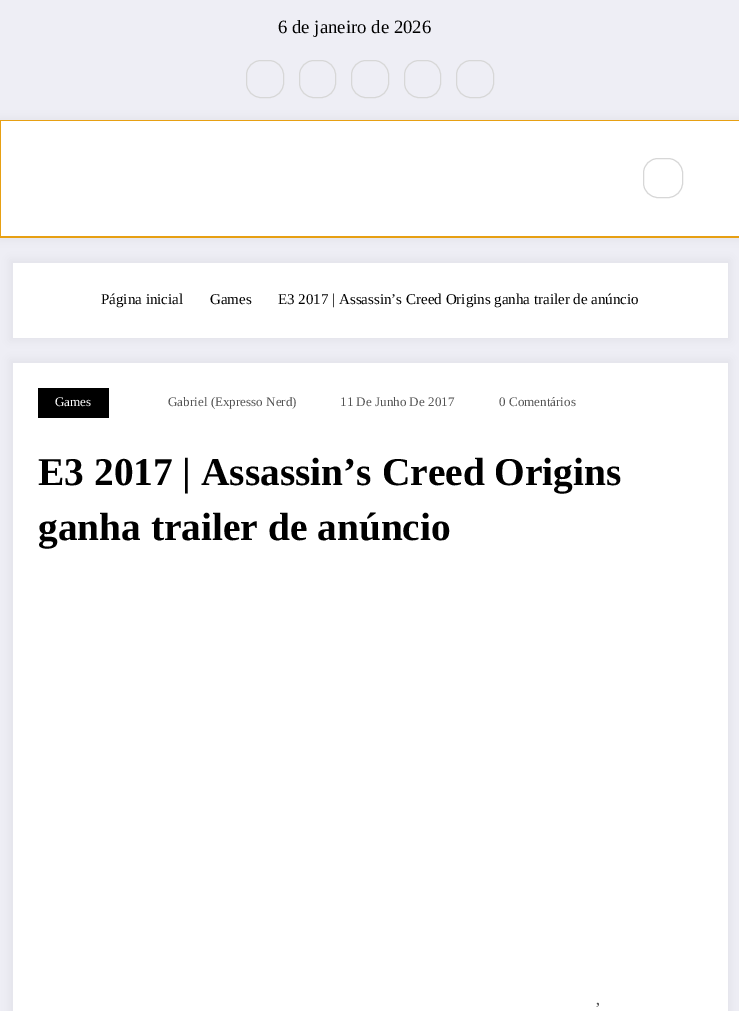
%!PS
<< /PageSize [739 1011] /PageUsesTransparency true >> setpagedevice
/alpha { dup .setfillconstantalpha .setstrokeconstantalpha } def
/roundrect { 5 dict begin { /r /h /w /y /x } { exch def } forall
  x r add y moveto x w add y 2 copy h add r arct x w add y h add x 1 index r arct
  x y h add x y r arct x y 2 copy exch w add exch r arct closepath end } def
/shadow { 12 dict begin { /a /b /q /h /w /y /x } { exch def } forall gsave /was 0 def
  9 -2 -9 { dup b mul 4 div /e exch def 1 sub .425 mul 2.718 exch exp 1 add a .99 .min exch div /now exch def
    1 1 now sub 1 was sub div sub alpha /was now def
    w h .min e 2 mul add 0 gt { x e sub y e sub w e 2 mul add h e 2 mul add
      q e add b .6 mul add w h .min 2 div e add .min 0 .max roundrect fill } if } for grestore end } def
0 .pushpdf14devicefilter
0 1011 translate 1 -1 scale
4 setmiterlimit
0.933 0.933 0.961 setrgbcolor
0 0 739 1011 rectfill
/LiberationSerif-Regular [18.75 0 0 -18.75 0 0] selectfont
0 setgray
278 33 moveto (6 de janeiro de 2026) show
0.843 setgray
246.5 60.5 37 37 14.5 roundrect stroke
299.5 60.5 36 37 14.5 roundrect stroke
351.5 60.5 37 37 14.5 roundrect stroke
404.5 60.5 36 37 14.5 roundrect stroke
456.5 60.5 37 37 14.5 roundrect stroke
0.937 0.651 0.075 setrgbcolor
0 120 739 118 rectfill
0.09 0.09 0.137 setrgbcolor
-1 119 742 120 0 5 0.05 shadow
1 setgray
1 121 738 115 rectfill
0.843 setgray
643.5 158.5 39 39 14.5 roundrect stroke
0.09 0.09 0.137 setrgbcolor
10 260 720 80 0 5 0.05 shadow
1 setgray
13 263 715 75 rectfill
/LiberationSerif-Regular [15 0 0 -15 0 0] selectfont
0 setgray
101 304 moveto (Página inicial) show
210 304 moveto (Games) show
278 304 moveto (E3 2017 | Assassin’s Creed Origins ganha trailer de anúncio) show
0.09 0.09 0.137 setrgbcolor
10 360 720 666 0 5 0.05 shadow
1 setgray
13 363 715 648 rectfill
0 setgray
38 388 71 30 rectfill
/LiberationSerif-Regular [13.1 0 0 -13.1 0 0] selectfont
1 setgray
55 406 moveto (Games) show
0.322 setgray
168 406 moveto (Gabriel \(Expresso Nerd\)) show
340 406 moveto (11 De Junho De 2017) show
499 406 moveto (0 Comentários) show
/LiberationSerif-Bold [39.4 0 0 -39.4 0 0] selectfont
0 setgray
38 485 moveto (E3 2017 | Assassin’s Creed Origins) show
38 540 moveto (ganha trailer de anúncio) show
/LiberationSerif-Regular [17 0 0 -17 0 0] selectfont
0.322 setgray
595 1014 moveto (’) show
.poppdf14devicefilter showpage
